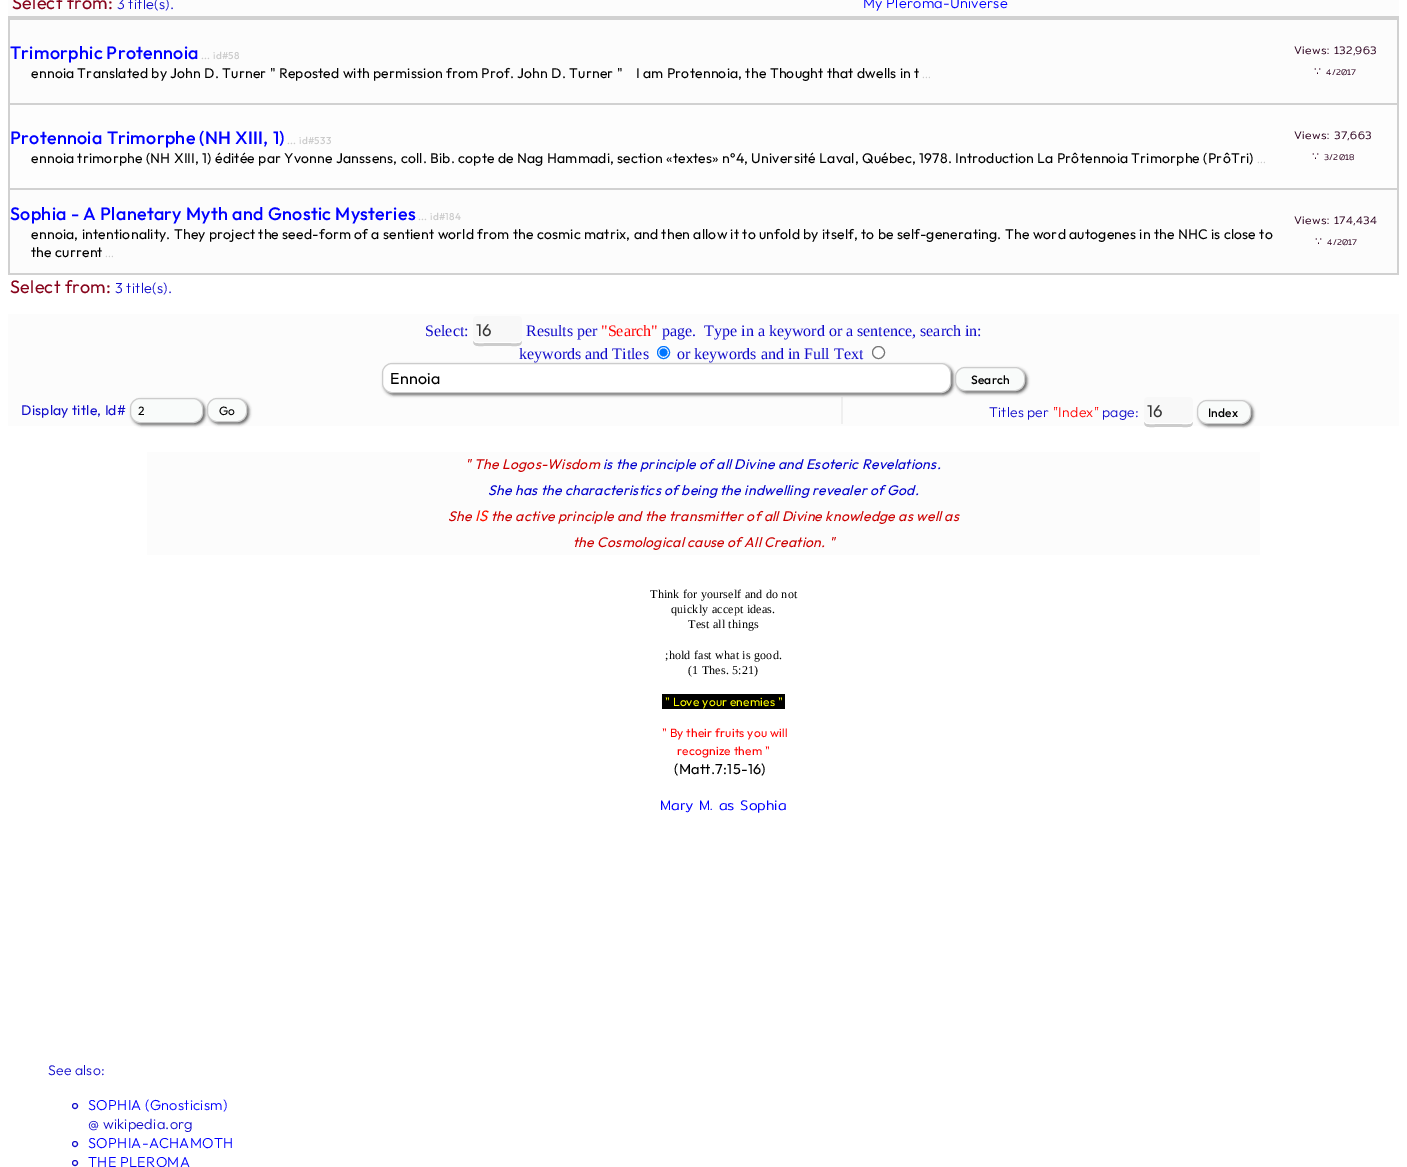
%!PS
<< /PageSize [1407 1167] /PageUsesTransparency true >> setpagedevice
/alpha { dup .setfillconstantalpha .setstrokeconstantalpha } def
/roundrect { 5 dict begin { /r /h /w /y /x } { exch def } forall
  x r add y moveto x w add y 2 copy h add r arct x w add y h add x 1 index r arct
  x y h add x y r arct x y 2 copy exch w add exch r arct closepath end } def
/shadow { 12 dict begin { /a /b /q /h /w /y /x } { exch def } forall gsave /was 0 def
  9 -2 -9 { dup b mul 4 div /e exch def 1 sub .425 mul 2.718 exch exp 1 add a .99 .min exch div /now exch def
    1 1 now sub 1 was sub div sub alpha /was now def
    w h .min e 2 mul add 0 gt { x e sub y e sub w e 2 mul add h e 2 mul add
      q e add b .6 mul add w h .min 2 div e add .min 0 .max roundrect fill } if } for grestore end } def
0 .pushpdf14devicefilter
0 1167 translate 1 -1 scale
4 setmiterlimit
1 setgray
0 0 1407 1167 rectfill
0.988 setgray
8 0 1391 16 rectfill
/Outfit-Regular [18 0 0 -18 0 0] selectfont
0.529 0.012 0.106 setrgbcolor
12 9 moveto 0.3 0 (Select from:) ashow
/Outfit-Light [14.5 0 0 -14.5 0 0] selectfont
0.067 0.047 0.792 setrgbcolor
117 9 moveto 0.25 0 (3 title\(s\).) ashow
0 0 1 setrgbcolor
863 8 moveto 0.25 0 (My Pleroma-Universe) ashow
0.82 setgray
8 16 1391 259 rectfill
0.988 setgray
10 20 1387 83 rectfill
/Outfit-Medium [18 0 0 -18 0 0] selectfont
0 0 1 setrgbcolor
10 59 moveto 0.3 0 (Trimorphic Protennoia) ashow
/Outfit-Medium [10 0 0 -10 0 0] selectfont
0.796 setgray
201 59 moveto 0.3 0 (... id#58) ashow
/Outfit-Regular [14 0 0 -14 0 0] selectfont
0 setgray
31 78 moveto 0.22 0 (ennoia Translated by John D. Turner " Reposted with permission from Prof. John D. Turner ") ashow
636 78 moveto 0.22 0 (I am Protennoia, the Thought that dwells in t) ashow
/Outfit-Regular [10 0 0 -10 0 0] selectfont
0.796 setgray
922 78 moveto 0.22 0 (...) ashow
/Mitr-Light [11 0 0 -11 0 0] selectfont
0.173 0 0.118 setrgbcolor
1294 54 moveto 0.25 0 (Views: 132,963) ashow
/DejaVuSans-Regular [11 0 0 -11 0 0] selectfont
1314 75 moveto 0.25 0 (∵) ashow
/Mitr-Light [8.5 0 0 -8.5 0 0] selectfont
1326 75 moveto 0.25 0 (4/2017) ashow
0.992 setgray
10 105 1387 83 rectfill
/Outfit-Medium [18 0 0 -18 0 0] selectfont
0 0 1 setrgbcolor
10 144 moveto 0.3 0 (Protennoia Trimorphe \(NH XIII, 1\)) ashow
/Outfit-Medium [10 0 0 -10 0 0] selectfont
0.796 setgray
287 144 moveto 0.3 0 (... id#533) ashow
/Outfit-Regular [14 0 0 -14 0 0] selectfont
0 setgray
31 163 moveto 0.22 0 (ennoia trimorphe \(NH XIII, 1\) éditée par Yvonne Janssens, coll. Bib. copte de Nag Hammadi, section «textes» n°4, Université Laval, Québec, 1978. Introduction La Prôtennoia Trimorphe \(PrôTri\)) ashow
/Outfit-Regular [10 0 0 -10 0 0] selectfont
0.796 setgray
1257 163 moveto 0.22 0 (...) ashow
/Mitr-Light [11 0 0 -11 0 0] selectfont
0.173 0 0.118 setrgbcolor
1294 139 moveto 0.25 0 (Views: 37,663) ashow
/DejaVuSans-Regular [11 0 0 -11 0 0] selectfont
1312 160 moveto 0.25 0 (∵) ashow
/Mitr-Light [8.5 0 0 -8.5 0 0] selectfont
1324 160 moveto 0.25 0 (3/2018) ashow
0.988 setgray
10 190 1387 83 rectfill
/Outfit-Medium [18 0 0 -18 0 0] selectfont
0 0 1 setrgbcolor
10 220 moveto 0.3 0 (Sophia - A Planetary Myth and Gnostic Mysteries) ashow
/Outfit-Medium [10 0 0 -10 0 0] selectfont
0.796 setgray
418 220 moveto 0.3 0 (... id#184) ashow
/Outfit-Regular [14 0 0 -14 0 0] selectfont
0 setgray
31 239 moveto 0.22 0 (ennoia, intentionality. They project the seed-form of a sentient world from the cosmic matrix, and then allow it to unfold by itself, to be self-generating. The word autogenes in the NHC is close to) ashow
31 257 moveto 0.22 0 (the current) ashow
/Outfit-Regular [10 0 0 -10 0 0] selectfont
0.796 setgray
105 257 moveto 0.22 0 (...) ashow
/Mitr-Light [11 0 0 -11 0 0] selectfont
0.173 0 0.118 setrgbcolor
1294 224 moveto 0.25 0 (Views: 174,434) ashow
/DejaVuSans-Regular [11 0 0 -11 0 0] selectfont
1315 245 moveto 0.25 0 (∵) ashow
/Mitr-Light [8.5 0 0 -8.5 0 0] selectfont
1327 245 moveto 0.25 0 (4/2017) ashow
/Outfit-Regular [18 0 0 -18 0 0] selectfont
0.529 0.012 0.106 setrgbcolor
10 293 moveto 0.3 0 (Select from:) ashow
/Outfit-Light [14.5 0 0 -14.5 0 0] selectfont
0.067 0.047 0.792 setrgbcolor
115 293 moveto 0.25 0 (3 title\(s\).) ashow
0.988 setgray
8 314 1391 112 rectfill
/LiberationSerif-Regular [16 0 0 -16 0 0] selectfont
0.067 0.047 0.792 setrgbcolor
425 336 moveto (Select:) show
0.8 setgray
newpath 473 339 moveto 473 347 476 346 484 346 curveto 511 346 lineto 519 346 522 347 522 339 curveto 522 341 520 343 518 343 curveto 477 343 lineto 475 343 473 341 473 339 curveto closepath fill
0.973 setgray
473 316 49 27 4 roundrect fill
1 setgray
newpath 473 338 moveto 473 344 479 343 484 343 curveto 511 343 lineto 516 343 522 344 522 338 curveto 522 340 520 342 518 342 curveto 477 342 lineto 475 342 473 340 473 338 curveto closepath fill
/Outfit-Regular [17 0 0 -17 0 0] selectfont
0.208 setgray
476 336 moveto (16) show
/LiberationSerif-Regular [16 0 0 -16 0 0] selectfont
0.067 0.047 0.792 setrgbcolor
526 336 moveto (Results per) show
1 0 0 setrgbcolor
601 336 moveto ("Search") show
0.067 0.047 0.792 setrgbcolor
662 336 moveto (page.  Type in a keyword or a sentence, search in:) show
519 359 moveto (keywords and Titles) show
1 setgray
newpath 663.5 352.5 6 0 360 arc closepath gsave fill grestore
0 0.459 1 setrgbcolor
stroke
newpath 663.5 352.5 4 0 360 arc closepath fill
0.067 0.047 0.792 setrgbcolor
677 359 moveto (or keywords and in Full Text) show
1 setgray
newpath 878.5 352.5 6 0 360 arc closepath gsave fill grestore
0.463 setgray
stroke
0.937 setgray
841 397 2 27 rectfill
0.4 setgray
384 365 569 30 10 1.5 1 shadow
1 setgray
382.5 363.5 568 29 9.5 roundrect gsave fill grestore
0.8 setgray
stroke
/Outfit-Regular [16 0 0 -16 0 0] selectfont
0 setgray
390 384 moveto 0.25 0 (Ennoia) ashow
0.4 setgray
957 369 70 24 10 1.5 1 shadow
0.976 0.984 0.98 setrgbcolor
955.5 367.5 69 23 9.5 roundrect gsave fill grestore
0.8 setgray
stroke
/Outfit-Medium [12 0 0 -12 0 0] selectfont
0 setgray
971 384 moveto 0.2 0 (Search) ashow
/Outfit-Regular [14 0 0 -14 0 0] selectfont
0.067 0.047 0.792 setrgbcolor
21 415 moveto 0.25 0 (Display title, Id#) ashow
0.4 setgray
132 400 73 25 10 1.5 1 shadow
0.976 0.984 0.98 setrgbcolor
130.5 398.5 72 24 9.5 roundrect gsave fill grestore
0.8 setgray
stroke
/Outfit-Regular [12 0 0 -12 0 0] selectfont
0 setgray
138 415 moveto 0.2 0 (2) ashow
0.4 setgray
209 400 40 24 10 1.5 1 shadow
0.976 0.984 0.98 setrgbcolor
207.5 398.5 39 23 9.5 roundrect gsave fill grestore
0.8 setgray
stroke
0 setgray
219 415 moveto 0.2 0 (Go) ashow
/Outfit-Light [14 0 0 -14 0 0] selectfont
0.067 0.047 0.792 setrgbcolor
989 417 moveto 0.25 0 (Titles per) ashow
1 0 0 setrgbcolor
1053 417 moveto 0.25 0 ("Index") ashow
0.067 0.047 0.792 setrgbcolor
1102 417 moveto 0.25 0 (page:) ashow
0.8 setgray
newpath 1144 420 moveto 1144 428 1147 427 1155 427 curveto 1182 427 lineto 1190 427 1193 428 1193 420 curveto 1193 422 1191 424 1189 424 curveto 1148 424 lineto 1146 424 1144 422 1144 420 curveto closepath fill
0.973 setgray
1144 397 49 27 4 roundrect fill
1 setgray
newpath 1144 419 moveto 1144 425 1150 424 1155 424 curveto 1182 424 lineto 1187 424 1193 425 1193 419 curveto 1193 421 1191 423 1189 423 curveto 1148 423 lineto 1146 423 1144 421 1144 419 curveto closepath fill
/Outfit-Regular [17 0 0 -17 0 0] selectfont
0.208 setgray
1147 417 moveto (16) show
0.4 setgray
1199 402 54 24 10 1.5 1 shadow
0.976 0.984 0.98 setrgbcolor
1197.5 400.5 53 23 9.5 roundrect gsave fill grestore
0.8 setgray
stroke
/Outfit-Medium [12 0 0 -12 0 0] selectfont
0 setgray
1208 417 moveto 0.2 0 (Index) ashow
0.988 setgray
147 452 1113 103 rectfill
/Outfit-Italic [14 0 0 -14 0 0] selectfont
0.8 0 0 setrgbcolor
465 469 moveto 0.25 0 (" The Logos-Wisdom) ashow
0 0 0.8 setrgbcolor
603 469 moveto 0.25 0 (is the principle of all Divine and Esoteric Revelations.) ashow
488 495 moveto 0.25 0 (She has the characteristics of being the indwelling revealer of God.) ashow
0.8 0 0 setrgbcolor
448 521 moveto 0.25 0 (She) ashow
/Outfit-Italic [15 0 0 -15 0 0] selectfont
1 0.086 0 setrgbcolor
475 521 moveto 0.25 0 (IS) ashow
/Outfit-Italic [14 0 0 -14 0 0] selectfont
0.8 0 0 setrgbcolor
491 521 moveto 0.25 0 (the active principle and the transmitter of all Divine knowledge as well as) ashow
573 547 moveto 0.25 0 (the Cosmological cause of All Creation. ") ashow
/LiberationSerif-Regular [12 0 0 -12 0 0] selectfont
0 setgray
650 598 moveto 0.2 0 (Think for yourself and do not) ashow
671 613 moveto 0.2 0 (quickly accept ideas.) ashow
688 628 moveto 0.2 0 (Test all things) ashow
665 659 moveto 0.2 0 (;hold fast what is good.) ashow
688 674 moveto 0.2 0 (\(1 Thes. 5:21\)) ashow
662 694 123 15 rectfill
/Outfit-Regular [12 0 0 -12 0 0] selectfont
1 1 0 setrgbcolor
665 706 moveto 0.2 0 (" Love your enemies ") ashow
1 0 0 setrgbcolor
662 737 moveto 0.2 0 (" By their fruits you will) ashow
677 755 moveto 0.2 0 (recognize them ") ashow
/Outfit-Regular [14.5 0 0 -14.5 0 0] selectfont
0 setgray
674 774 moveto 0.25 0 (\(Matt.7:15-16\)) ashow
/Mitr-Light [14 0 0 -14 0 0] selectfont
0 0 1 setrgbcolor
660 810 moveto (Mary M. as Sophia) show
/Outfit-Light [14 0 0 -14 0 0] selectfont
0.067 0.047 0.792 setrgbcolor
48 1075 moveto 0.25 0 (See also:) ashow
newpath 75 1106 2.5 0 360 arc closepath stroke
/Outfit-Light [14.5 0 0 -14.5 0 0] selectfont
0 0 1 setrgbcolor
88 1110 moveto 0.25 0 (SOPHIA \(Gnosticism\)) ashow
0.067 0.047 0.792 setrgbcolor
88 1129 moveto 0.25 0 (@ wikipedia.org) ashow
newpath 75 1144 2.5 0 360 arc closepath stroke
0 0 1 setrgbcolor
88 1148 moveto 0.25 0 (SOPHIA-ACHAMOTH) ashow
0.067 0.047 0.792 setrgbcolor
newpath 75 1163 2.5 0 360 arc closepath stroke
0 0 1 setrgbcolor
88 1167 moveto 0.25 0 (THE PLEROMA) ashow
.poppdf14devicefilter showpage
